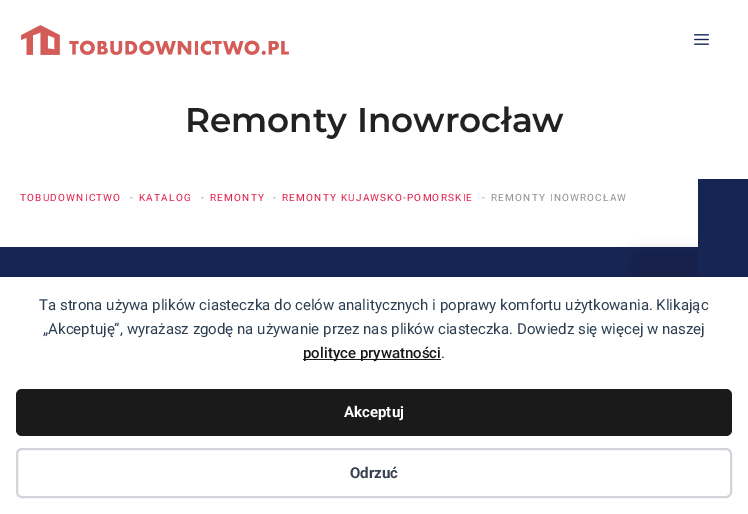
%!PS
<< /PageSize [748 514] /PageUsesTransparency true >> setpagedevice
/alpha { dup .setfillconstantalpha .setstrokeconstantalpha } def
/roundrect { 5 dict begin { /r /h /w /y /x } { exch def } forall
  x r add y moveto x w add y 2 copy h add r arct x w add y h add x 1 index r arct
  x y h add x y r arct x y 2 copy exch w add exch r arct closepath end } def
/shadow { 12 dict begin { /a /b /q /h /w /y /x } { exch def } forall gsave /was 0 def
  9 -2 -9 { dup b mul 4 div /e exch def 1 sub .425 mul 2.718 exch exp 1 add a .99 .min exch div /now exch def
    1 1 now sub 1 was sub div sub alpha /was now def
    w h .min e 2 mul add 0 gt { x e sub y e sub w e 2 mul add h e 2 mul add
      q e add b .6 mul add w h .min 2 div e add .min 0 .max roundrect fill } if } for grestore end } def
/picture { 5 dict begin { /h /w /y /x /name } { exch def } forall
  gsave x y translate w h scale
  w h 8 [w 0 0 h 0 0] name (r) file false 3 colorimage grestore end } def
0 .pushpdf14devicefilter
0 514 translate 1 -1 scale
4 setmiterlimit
1 setgray
0 0 748 514 rectfill
(img1.rgb) 21 25 268 30 picture
(img2.rgb) 694 34 15 11 picture
/Montserrat-SemiBold [34.25 0 0 -34.25 0 0] selectfont
0.133 setgray
185 132 moveto (Remonty Inowrocław) show
/Roboto-Regular [10 0 0 -10 0 0] selectfont
0.882 0.114 0.282 setrgbcolor
20 201 moveto 1.2 0 (TOBUDOWNICTWO) ashow
0.561 setgray
130 201 moveto 1.2 0 (-) ashow
0.882 0.114 0.282 setrgbcolor
139 201 moveto 1.2 0 (KATALOG) ashow
0.561 setgray
201 201 moveto 1.2 0 (-) ashow
0.882 0.114 0.282 setrgbcolor
210 201 moveto 1.2 0 (REMONTY) ashow
0.561 setgray
273 201 moveto 1.2 0 (-) ashow
0.882 0.114 0.282 setrgbcolor
282 201 moveto 1.2 0 (REMONTY KUJAWSKO-POMORSKIE) ashow
0.561 setgray
482 201 moveto 1.2 0 (-) ashow
491 201 moveto 1.2 0 (REMONTY INOWROCŁAW) ashow
0.09 0.145 0.329 setrgbcolor
0 247 698 30 rectfill
0 setgray
630 248 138 50 5 5 0.1 shadow
0.09 0.145 0.329 setrgbcolor
698 179 50 98 rectfill
0 setgray
0 275 748 237 0 5 0.08 shadow
1 setgray
0 277 748 237 rectfill
/Roboto-Regular [15 0 0 -15 0 0] selectfont
0.173 0.243 0.314 setrgbcolor
39 310 moveto (Ta strona używa plików ciasteczka do celów analitycznych i poprawy komfortu użytkowania. Klikając) show
43 334 moveto („Akceptuję”, wyrażasz zgodę na używanie przez nas plików ciasteczka. Dowiedz się więcej w naszej) show
0.102 setgray
303 359 138 1 rectfill
/Roboto-Medium [15 0 0 -15 0 0] selectfont
303 358 moveto (polityce prywatności) show
/Roboto-Regular [15 0 0 -15 0 0] selectfont
0.173 0.243 0.314 setrgbcolor
441 358 moveto (.) show
0.102 setgray
16 389 716 47 6 roundrect fill
/Roboto-Bold [15 0 0 -15 0 0] selectfont
1 setgray
344 417 moveto (Akceptuj) show
0.82 0.835 0.859 setrgbcolor
2 setlinewidth
17 449 714 48 5 roundrect stroke
0.216 0.255 0.318 setrgbcolor
350 478 moveto (Odrzuć) show
.poppdf14devicefilter showpage
